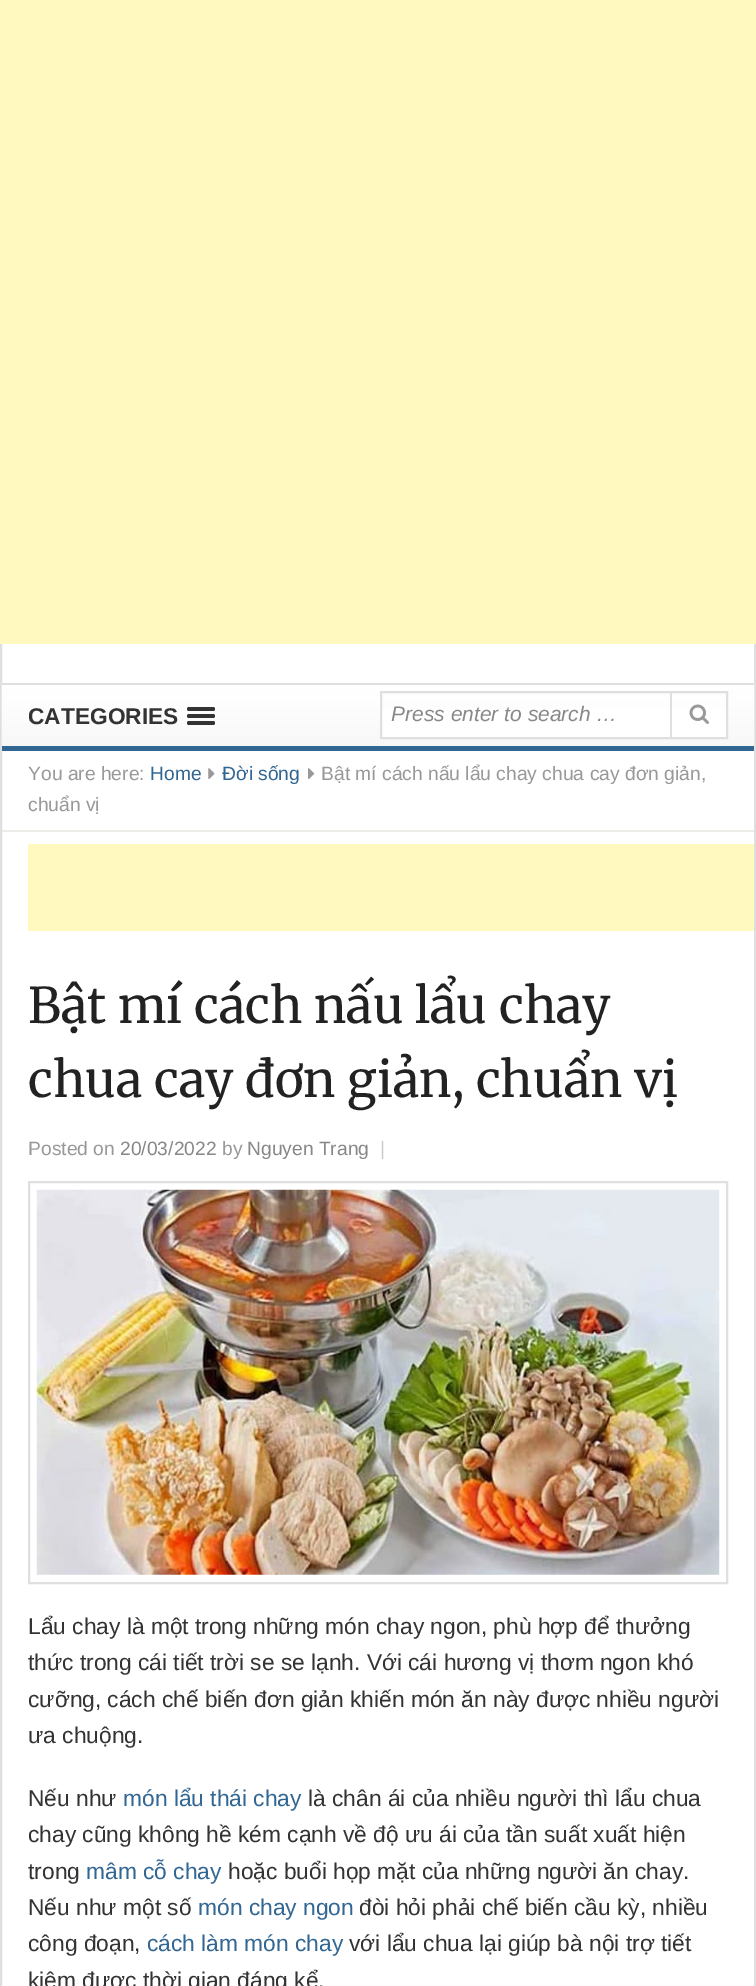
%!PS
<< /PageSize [756 1986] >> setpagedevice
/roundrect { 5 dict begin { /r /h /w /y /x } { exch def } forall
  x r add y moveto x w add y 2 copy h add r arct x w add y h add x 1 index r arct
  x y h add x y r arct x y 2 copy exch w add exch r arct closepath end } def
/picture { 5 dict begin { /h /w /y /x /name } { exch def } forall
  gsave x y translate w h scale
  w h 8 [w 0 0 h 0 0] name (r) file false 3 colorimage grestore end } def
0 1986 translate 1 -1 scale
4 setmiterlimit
1 setgray
0 0 756 1986 rectfill
0.875 setgray
2 setlinewidth
1 -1 754 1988 rectstroke
1 0.976 0.753 setrgbcolor
0 0 756 644 rectfill
(img1.rgb) 1 684 754 66 picture
0.875 setgray
2 683 752 2 rectfill
0.196 0.4 0.576 setrgbcolor
2 746 752 5 rectfill
/LiberationSans-Bold [22.75 0 0 -22.75 0 0] selectfont
0.2 setgray
28 724 moveto (CATEGORIES) show
187 707 28 4 2 roundrect fill
187 714 28 4 2 roundrect fill
187 721 28 4 2 roundrect fill
1 setgray
382 709 344 28 rectfill
0.875 setgray
381 692 346 46 rectstroke
/LiberationSans-Italic [21 0 0 -21 0 0] selectfont
0.533 setgray
391 721 moveto (Press enter to search …) show
0.875 setgray
670 693 2 44 rectfill
(img2.rgb) 689 704 20 20 picture
/LiberationSans-Regular [19.25 0 0 -19.25 0 0] selectfont
0.6 setgray
28 780 moveto (You are here:) show
0.196 0.4 0.576 setrgbcolor
150 780 moveto (Home) show
(img3.rgb) 208 768 7 11 picture
222 780 moveto (Đời sống) show
(img4.rgb) 308 768 7 11 picture
0.6 setgray
321 780 moveto (Bật mí cách nấu lẩu chay chua cay đơn giản,) show
28 811 moveto (chuẩn vị) show
0.925 0.929 0.91 setrgbcolor
2 830 752 2 rectfill
1 0.976 0.753 setrgbcolor
28 844 726 87 rectfill
/Merriweather-Regular [49 0 0 -49 0 0] selectfont
0.133 setgray
28 1023 moveto (Bật mí cách nấu lẩu chay) show
28 1097 moveto (chua cay đơn giản, chuẩn vị) show
/LiberationSans-Regular [19.25 0 0 -19.25 0 0] selectfont
0.6 setgray
28 1155 moveto (Posted on) show
0.533 setgray
120 1155 moveto (20/03/2022) show
0.6 setgray
222 1155 moveto (by) show
0.533 setgray
247 1155 moveto (Nguyen Trang) show
0.8 setgray
380 1155 moveto (|) show
0.878 setgray
29 1182 698 401 rectstroke
(img5.rgb) 36 1189 684 386 picture
/LiberationSans-Regular [22.75 0 0 -22.75 0 0] selectfont
0.2 setgray
28 1634 moveto (Lẩu chay là một trong những món chay ngon, phù hợp để thưởng) show
28 1670 moveto (thức trong cái tiết trời se se lạnh. Với cái hương vị thơm ngon khó) show
28 1707 moveto (cưỡng, cách chế biến đơn giản khiến món ăn này được nhiều người) show
28 1743 moveto (ưa chuộng.) show
28 1806 moveto (Nếu như) show
0.196 0.4 0.576 setrgbcolor
123 1806 moveto (món lẩu thái chay) show
0.2 setgray
308 1806 moveto (là chân ái của nhiều người thì lẩu chua) show
28 1842 moveto (chay cũng không hề kém cạnh về độ ưu ái của tần suất xuất hiện) show
28 1879 moveto (trong) show
0.196 0.4 0.576 setrgbcolor
86 1879 moveto (mâm cỗ chay) show
0.2 setgray
228 1879 moveto (hoặc buổi họp mặt của những người ăn chay.) show
28 1915 moveto (Nếu như một số) show
0.196 0.4 0.576 setrgbcolor
198 1915 moveto (món chay ngon) show
0.2 setgray
359 1915 moveto (đòi hỏi phải chế biến cầu kỳ, nhiều) show
28 1951 moveto (công đoạn,) show
0.196 0.4 0.576 setrgbcolor
147 1951 moveto (cách làm món chay) show
0.2 setgray
349 1951 moveto (với lẩu chua lại giúp bà nội trợ tiết) show
28 1988 moveto (kiệm được thời gian đáng kể.) show
showpage
